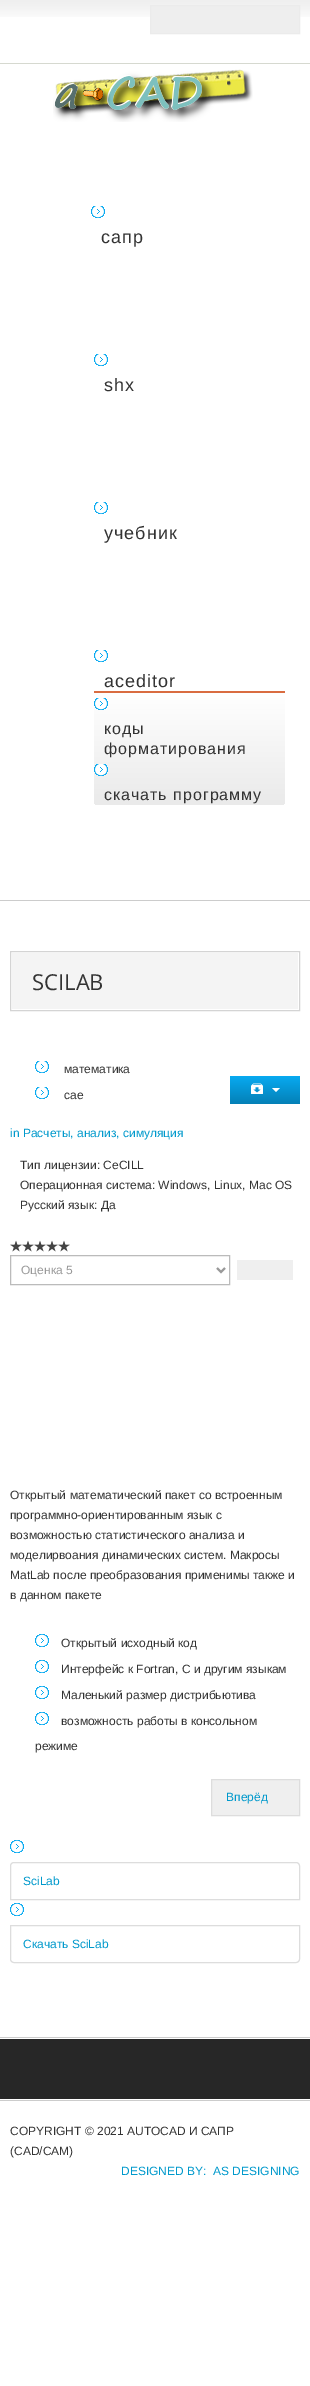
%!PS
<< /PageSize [310 2386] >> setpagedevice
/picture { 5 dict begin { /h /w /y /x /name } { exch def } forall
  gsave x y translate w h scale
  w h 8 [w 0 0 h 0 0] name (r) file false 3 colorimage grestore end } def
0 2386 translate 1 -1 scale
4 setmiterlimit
1 setgray
0 0 310 2386 rectfill
0.8 setgray
0 900 310 1 rectfill
(img1.rgb) 0 0 310 17 picture
0.839 0.851 0.816 setrgbcolor
0 63 310 1 rectfill
0.933 setgray
newpath 150.5 5.5 moveto 299.5 5.5 lineto 299.5 33.5 lineto 150.5 33.5 lineto closepath gsave fill grestore
0.922 setgray
stroke
(img2.rgb) 53 69 200 53 picture
(img3.rgb) 91 206 14 12 picture
/LiberationSans-Regular [18 0 0 -18 0 0] selectfont
0.2 setgray
101 243 moveto 1 0 (сапр) ashow
(img3.rgb) 94 354 14 12 picture
104 391 moveto 1 0 (shx) ashow
(img3.rgb) 94 502 14 12 picture
104 539 moveto 1 0 (учебник) ashow
(img3.rgb) 94 650 14 12 picture
104 687 moveto 1 0 (aceditor) ashow
gsave newpath 94 693 moveto 285 693 lineto 285 800 lineto 285 803 283 805 280 805 curveto 99 805 lineto 96 805 94 803 94 800 curveto closepath clip newpath
<< /ShadingType 2 /ColorSpace /DeviceRGB /Coords [190 693 190 805] /Extend [true true] /Function << /FunctionType 2 /Domain [0 1] /C0 [1 1 1] /C1 [0.918 0.918 0.918] /N 1 >> >> shfill grestore
0.851 0.424 0.251 setrgbcolor
94 691 191 2 rectfill
(img4.rgb) 94 698 14 12 picture
/LiberationSans-Regular [16 0 0 -16 0 0] selectfont
0.2 setgray
104 734 moveto 1 0 (коды) ashow
104 754 moveto 1 0 (форматирования) ashow
(img5.rgb) 94 764 14 12 picture
104 800 moveto 1 0 (скачать программу) ashow
0.831 setgray
10.5 951.5 289 59 rectstroke
0.957 setgray
12 953 286 56 rectfill
/OpenSans-Regular [22 0 0 -22 0 0] selectfont
0.2 setgray
32 990 moveto (SCILAB) show
(img3.rgb) 35 1061 14 12 picture
/LiberationSans-Regular [12 0 0 -12 0 0] selectfont
64 1073 moveto (математика) show
(img3.rgb) 35 1087 14 12 picture
64 1099 moveto (cae) show
gsave newpath 230 1076 moveto 300 1076 lineto 300 1104 lineto 230 1104 lineto closepath clip newpath
<< /ShadingType 2 /ColorSpace /DeviceRGB /Coords [265 1076 265 1104] /Extend [true true] /Function << /FunctionType 2 /Domain [0 1] /C0 [0.031 0.667 0.945] /C1 [0.016 0.502 0.714] /N 1 >> >> shfill grestore
(img6.rgb) 251 1083 12 11 picture
1 setgray
newpath 272 1088 moveto 280 1088 lineto 276 1092 lineto closepath fill
0 0.6 0.8 setrgbcolor
10 1137 moveto (in Расчеты, анализ, симуляция) show
0.2 setgray
20 1169 moveto (Тип лицензии: CeCILL) show
20 1189 moveto (Операционная система: Windows, Linux, Mac OS) show
20 1209 moveto (Русский язык: Да) show
(img7.rgb) 10 1240 12 12 picture
(img7.rgb) 22 1240 12 12 picture
(img7.rgb) 34 1240 12 12 picture
(img7.rgb) 46 1240 12 12 picture
(img7.rgb) 58 1240 12 12 picture
0.733 setgray
10.5 1255.5 219 29 rectstroke
0.6 setgray
2 setlinewidth
newpath 217 1268 moveto 221 1272 lineto 225 1268 lineto stroke
21 1274 moveto (Оценка 5) show
0.937 setgray
237 1260 56 20 rectfill
0.2 setgray
10 1499 moveto (Открытый математический пакет со встроенным) show
10 1519 moveto (программно-ориентированным язык с) show
10 1539 moveto (возможностью статистического анализа и) show
10 1559 moveto (моделирвоания динамических систем. Макросы) show
10 1579 moveto (MatLab после преобразования применимы также и) show
10 1599 moveto (в данном пакете) show
(img8.rgb) 35 1634 14 13 picture
61 1647 moveto (Открытый исходный код) show
(img8.rgb) 35 1660 14 13 picture
61 1673 moveto (Интерфейс к Fortran, C и другим языкам) show
(img8.rgb) 35 1686 14 13 picture
61 1699 moveto (Маленький размер дистрибьютива) show
(img8.rgb) 35 1712 14 13 picture
61 1725 moveto (возможность работы в консольном) show
35 1750 moveto (режиме) show
0.937 setgray
newpath 211.5 1779.5 moveto 299.5 1779.5 lineto 299.5 1815.5 lineto 211.5 1815.5 lineto closepath gsave fill grestore
0.867 setgray
1 setlinewidth
stroke
0 0.6 0.8 setrgbcolor
226 1801 moveto (Вперёд) show
(img8.rgb) 10 1840 14 13 picture
0.867 setgray
newpath 14 1862.5 moveto 296 1862.5 lineto 298 1862.5 299.5 1864 299.5 1866 curveto 299.5 1899.5 lineto 10.5 1899.5 lineto 10.5 1866 lineto 10.5 1864 12 1862.5 14 1862.5 curveto closepath stroke
0 0.6 0.8 setrgbcolor
23 1885 moveto (SciLab) show
(img8.rgb) 10 1903 14 13 picture
0.867 setgray
newpath 10.5 1925.5 moveto 299.5 1925.5 lineto 299.5 1959 lineto 299.5 1961 298 1962.5 296 1962.5 curveto 14 1962.5 lineto 12 1962.5 10.5 1961 10.5 1959 curveto closepath stroke
0 0.6 0.8 setrgbcolor
23 1948 moveto (Скачать SciLab) show
0.8 setgray
0 2037 310 1 rectfill
0.153 setgray
0 2039 310 60 rectfill
0.8 setgray
0 2100 310 1 rectfill
0.2 setgray
10 2135 moveto (COPYRIGHT © 2021 AUTOCAD И САПР) show
10 2155 moveto (\(CAD/CAM\)) show
0 0.6 0.8 setrgbcolor
121 2175 moveto (DESIGNED BY:  AS DESIGNING) show
showpage
